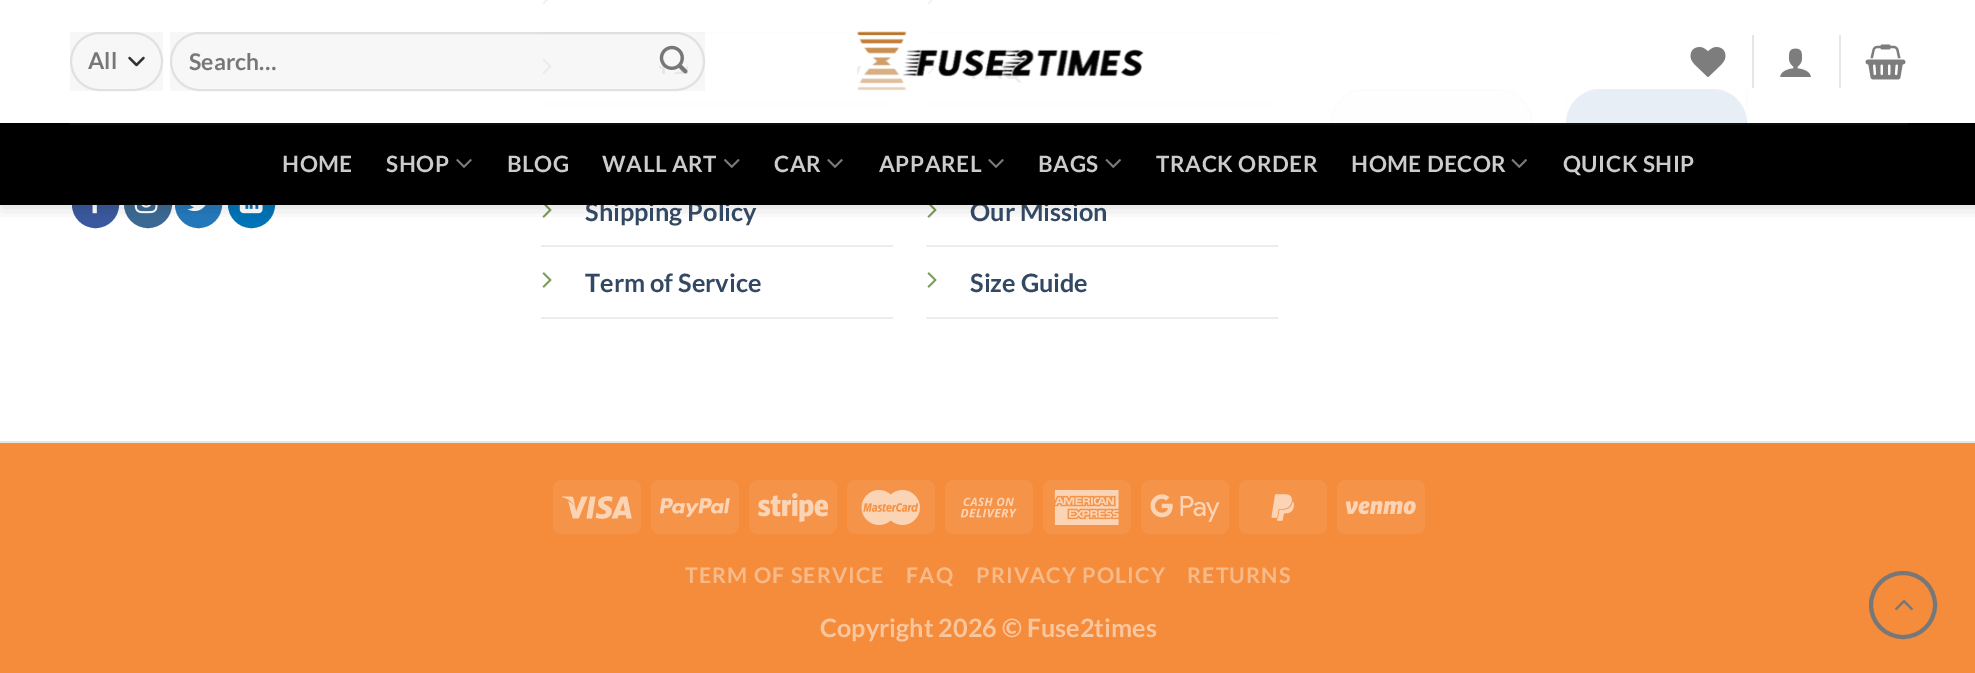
%!PS
<< /PageSize [1975 673] /PageUsesTransparency true >> setpagedevice
/alpha { dup .setfillconstantalpha .setstrokeconstantalpha } def
/roundrect { 5 dict begin { /r /h /w /y /x } { exch def } forall
  x r add y moveto x w add y 2 copy h add r arct x w add y h add x 1 index r arct
  x y h add x y r arct x y 2 copy exch w add exch r arct closepath end } def
/shadow { 12 dict begin { /a /b /q /h /w /y /x } { exch def } forall gsave /was 0 def
  9 -2 -9 { dup b mul 4 div /e exch def 1 sub .425 mul 2.718 exch exp 1 add a .99 .min exch div /now exch def
    1 1 now sub 1 was sub div sub alpha /was now def
    w h .min e 2 mul add 0 gt { x e sub y e sub w e 2 mul add h e 2 mul add
      q e add b .6 mul add w h .min 2 div e add .min 0 .max roundrect fill } if } for grestore end } def
/picture { 5 dict begin { /h /w /y /x /name } { exch def } forall
  gsave x y translate w h scale
  w h 8 [w 0 0 h 0 0] name (r) file false 3 colorimage grestore end } def
0 .pushpdf14devicefilter
0 673 translate 1 -1 scale
4 setmiterlimit
1 setgray
0 0 1975 673 rectfill
0.969 setgray
1330 89 203 69 34.5 roundrect fill
0.09 alpha
0 setgray
2 setlinewidth
1331 90 201 67 33.5 roundrect stroke
1 alpha
0.067 0.318 0.608 setrgbcolor
1566 89 181 69 34.5 roundrect fill
0.05 alpha
0 setgray
1567 90 179 67 rectstroke
1 alpha
0.227 0.345 0.616 setrgbcolor
73 180 45 47 22.5 roundrect gsave fill grestore
stroke
(img9.rgb) 92 205 5 9 picture
0.231 0.412 0.58 setrgbcolor
125 180 46 47 23 roundrect gsave fill grestore
stroke
(img10.rgb) 134 205 24 9 picture
0.141 0.471 0.729 setrgbcolor
176 180 45 47 22.5 roundrect gsave fill grestore
stroke
(img11.rgb) 187 205 19 6 picture
0 0.447 0.718 setrgbcolor
229 180 45 47 22.5 roundrect gsave fill grestore
stroke
(img12.rgb) 239 205 24 9 picture
0.925 setgray
541 32 352 2 rectfill
(img13.rgb) 542 0 7 5 picture
541 103 352 2 rectfill
(img14.rgb) 542 58 10 17 picture
(img15.rgb) 542 205 10 13 picture
926 32 352 2 rectfill
(img13.rgb) 927 0 7 5 picture
926 103 352 2 rectfill
(img14.rgb) 927 58 10 17 picture
(img15.rgb) 927 205 10 13 picture
gsave
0 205 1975 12 rectclip
0 setgray
2 2 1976 205 0 9 0.15 shadow
grestore
0.03 alpha
0 setgray
70 32 93 59 rectfill
1 alpha
0.2 setgray
2.3 setlinewidth
1 setlinecap
1 setlinejoin
newpath 129.5 58 moveto 136.5 65 lineto 143.5 58 lineto stroke
0.09 alpha
0 setgray
2 setlinewidth
0 setlinecap
0 setlinejoin
71 33 91 57 28.5 roundrect stroke
/Lato-Bold [23 0 0 -23 0 0] selectfont
1 alpha
0.467 setgray
88 69 moveto (All) show
0.9 alpha
1 setgray
541 0 1206 123 rectfill
0.03 alpha
0 setgray
170 32 535 59 rectfill
0.09 alpha
171 33 533 57 28.5 roundrect stroke
1 alpha
0.467 setgray
189 70 moveto (Search…) show
(img1.rgb) 659 45 29 29 picture
(img2.rgb) 857 31 287 60 picture
(img3.rgb) 1690 47 36 30 picture
0.1 alpha
0 setgray
1752 35 2 53 rectfill
1 alpha
(img4.rgb) 1780 48 31 29 picture
0.902 setgray
1839 35 2 53 rectfill
(img5.rgb) 1865 44 41 36 picture
/Lato-Bold [25.25 0 0 -25.25 0 0] selectfont
0.2 0.282 0.384 setrgbcolor
585 221 moveto (Shipping Policy) show
970 221 moveto (Our Mission) show
0 setgray
0 123 1975 82 rectfill
0.047 setgray
70 123 1838 2 rectfill
/Lato-Bold [22.5 0 0 -22.5 0 0] selectfont
0.8 setgray
282 172 moveto 0.5 0 (HOME) ashow
386 172 moveto 0.5 0 (SHOP) ashow
(img6.rgb) 456 159 16 9 picture
507 172 moveto 0.5 0 (BLOG) ashow
602 172 moveto 0.5 0 (WALL ART) ashow
(img7.rgb) 724 159 16 9 picture
774 172 moveto 0.5 0 (CAR) ashow
(img6.rgb) 827 159 16 9 picture
879 172 moveto 0.5 0 (APPAREL) ashow
(img6.rgb) 988 159 16 9 picture
1038 172 moveto 0.5 0 (BAGS) ashow
(img8.rgb) 1105 159 16 9 picture
1156 172 moveto 0.5 0 (TRACK ORDER) ashow
1351 172 moveto 0.5 0 (HOME DECOR) ashow
(img8.rgb) 1511 159 16 9 picture
1563 172 moveto 0.5 0 (QUICK SHIP) ashow
0.925 setgray
541 245 352 2 rectfill
541 317 352 2 rectfill
(img16.rgb) 542 272 10 16 picture
/Lato-Bold [25.25 0 0 -25.25 0 0] selectfont
0.2 0.282 0.384 setrgbcolor
585 292 moveto (Term of Service) show
0.925 setgray
926 245 352 2 rectfill
926 317 352 2 rectfill
(img16.rgb) 927 272 10 16 picture
0.2 0.282 0.384 setrgbcolor
970 292 moveto (Size Guide) show
0.902 setgray
0 441 1975 2 rectfill
0.957 0.549 0.235 setrgbcolor
0 443 1975 230 rectfill
0.961 0.576 0.282 setrgbcolor
553 480 88 54 9 roundrect fill
(img17.rgb) 562 496 70 23 picture
651 480 88 54 9 roundrect fill
(img18.rgb) 660 498 70 19 picture
749 480 88 54 9 roundrect fill
(img19.rgb) 758 493 70 29 picture
847 480 88 54 9 roundrect fill
(img20.rgb) 861 490 59 35 picture
945 480 88 54 9 roundrect fill
(img21.rgb) 960 497 57 21 picture
1043 480 88 54 9 roundrect fill
(img22.rgb) 1054 490 65 35 picture
1141 480 88 54 9 roundrect fill
(img23.rgb) 1150 494 70 28 picture
1239 480 88 54 9 roundrect fill
(img24.rgb) 1271 494 23 27 picture
1337 480 88 54 9 roundrect fill
(img25.rgb) 1346 501 70 14 picture
/Lato-Bold [21.5 0 0 -21.5 0 0] selectfont
0.976 0.729 0.541 setrgbcolor
685 583 moveto 1.1 0 (TERM OF SERVICE) ashow
906 583 moveto 1.1 0 (FAQ) ashow
976 583 moveto 1.1 0 (PRIVACY POLICY) ashow
1187 583 moveto 1.1 0 (RETURNS) ashow
/Lato-Bold [25.25 0 0 -25.25 0 0] selectfont
0.98 0.776 0.62 setrgbcolor
820 637 moveto (Copyright 2026 © Fuse2times) show
0.467 setgray
4 setlinewidth
newpath 1903 605 32 0 360 arc closepath stroke
(img26.rgb) 1895 599 18 12 picture
.poppdf14devicefilter showpage
